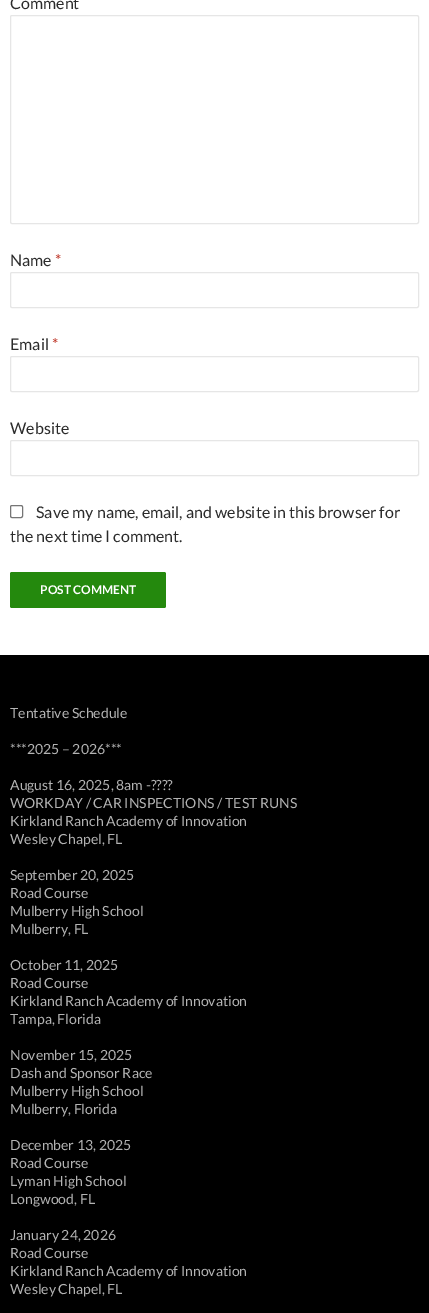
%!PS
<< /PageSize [429 1313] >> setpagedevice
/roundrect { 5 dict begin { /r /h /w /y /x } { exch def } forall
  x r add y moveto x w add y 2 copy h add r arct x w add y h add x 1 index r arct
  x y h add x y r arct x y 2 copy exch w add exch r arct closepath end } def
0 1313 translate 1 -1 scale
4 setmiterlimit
1 setgray
0 0 429 1313 rectfill
/Lato-Regular [16 0 0 -16 0 0] selectfont
0.169 setgray
10 9 moveto (Comment) show
0.902 setgray
10.5 15.5 408 208 1.5 roundrect stroke
0.169 setgray
10 266 moveto (Name) show
0.753 0.224 0.169 setrgbcolor
55 266 moveto (*) show
0.902 setgray
10.5 272.5 408 35 1.5 roundrect stroke
0.169 setgray
10 350 moveto (Email) show
0.753 0.224 0.169 setrgbcolor
52 350 moveto (*) show
0.902 setgray
10.5 356.5 408 35 1.5 roundrect stroke
0.169 setgray
10 434 moveto (Website) show
0.902 setgray
10.5 440.5 408 35 1.5 roundrect stroke
0.463 setgray
10.5 505.5 12 12 1.5 roundrect stroke
0.169 setgray
36 518 moveto (Save my name, email, and website in this browser for) show
10 542 moveto (the next time I comment.) show
0.141 0.537 0.051 setrgbcolor
10 572 156 36 2 roundrect fill
/Lato-Bold [12 0 0 -12 0 0] selectfont
1 setgray
40 594 moveto (POST COMMENT) show
0 setgray
0 655 429 658 rectfill
/Lato-Regular [14 0 0 -14 0 0] selectfont
0.702 setgray
10 718 moveto (Tentative Schedule) show
10 754 moveto (***2025 – 2026***) show
10 790 moveto (August 16, 2025, 8am -????) show
10 808 moveto (WORKDAY / CAR INSPECTIONS / TEST RUNS) show
10 826 moveto (Kirkland Ranch Academy of Innovation) show
10 844 moveto (Wesley Chapel, FL) show
10 880 moveto (September 20, 2025) show
10 898 moveto (Road Course) show
10 916 moveto (Mulberry High School) show
10 934 moveto (Mulberry, FL) show
10 970 moveto (October 11, 2025) show
10 988 moveto (Road Course) show
10 1006 moveto (Kirkland Ranch Academy of Innovation) show
10 1024 moveto (Tampa, Florida) show
10 1060 moveto (November 15, 2025) show
10 1078 moveto (Dash and Sponsor Race) show
10 1096 moveto (Mulberry High School) show
10 1114 moveto (Mulberry, Florida) show
10 1150 moveto (December 13, 2025) show
10 1168 moveto (Road Course) show
10 1186 moveto (Lyman High School) show
10 1204 moveto (Longwood, FL) show
10 1240 moveto (January 24, 2026) show
10 1258 moveto (Road Course) show
10 1276 moveto (Kirkland Ranch Academy of Innovation) show
10 1294 moveto (Wesley Chapel, FL) show
showpage
